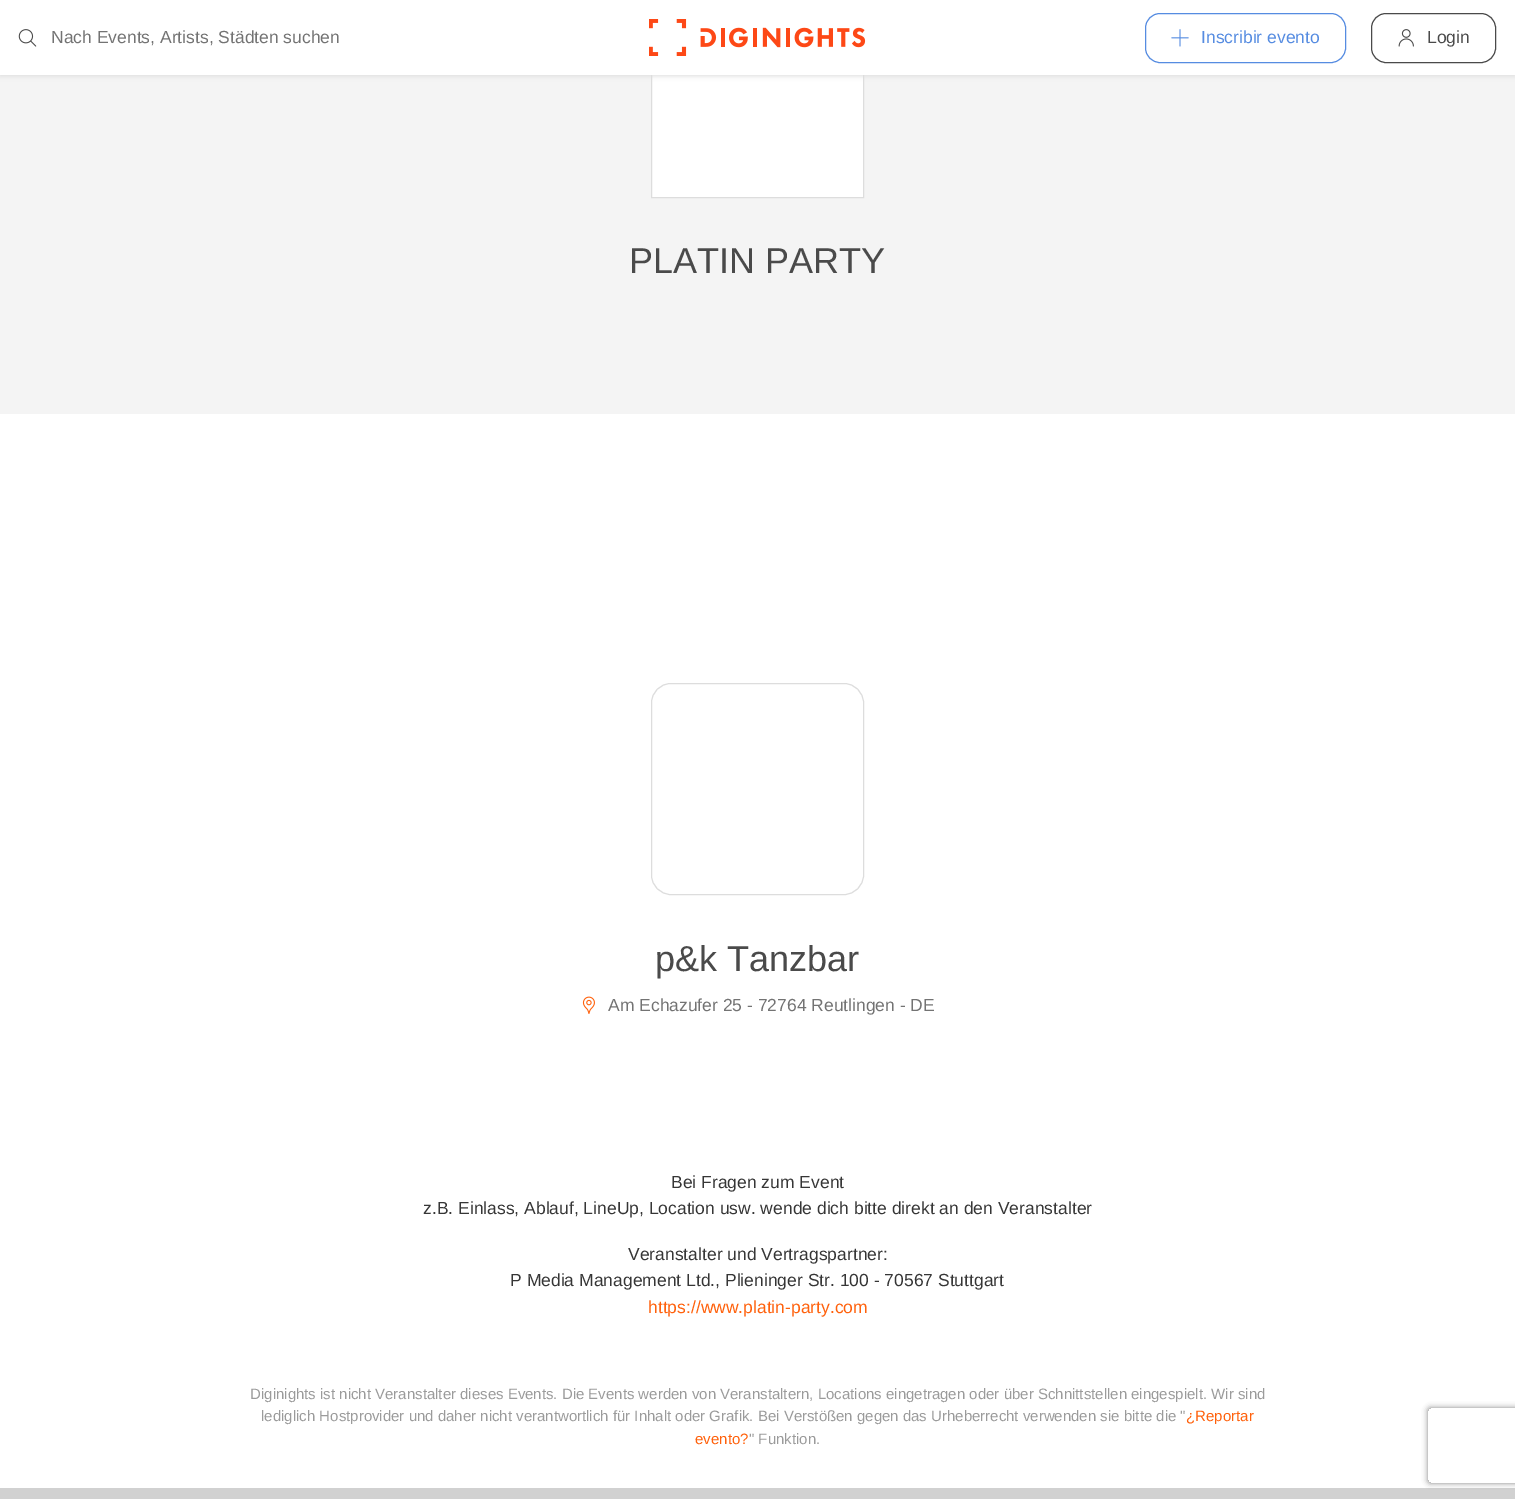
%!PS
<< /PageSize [1515 1499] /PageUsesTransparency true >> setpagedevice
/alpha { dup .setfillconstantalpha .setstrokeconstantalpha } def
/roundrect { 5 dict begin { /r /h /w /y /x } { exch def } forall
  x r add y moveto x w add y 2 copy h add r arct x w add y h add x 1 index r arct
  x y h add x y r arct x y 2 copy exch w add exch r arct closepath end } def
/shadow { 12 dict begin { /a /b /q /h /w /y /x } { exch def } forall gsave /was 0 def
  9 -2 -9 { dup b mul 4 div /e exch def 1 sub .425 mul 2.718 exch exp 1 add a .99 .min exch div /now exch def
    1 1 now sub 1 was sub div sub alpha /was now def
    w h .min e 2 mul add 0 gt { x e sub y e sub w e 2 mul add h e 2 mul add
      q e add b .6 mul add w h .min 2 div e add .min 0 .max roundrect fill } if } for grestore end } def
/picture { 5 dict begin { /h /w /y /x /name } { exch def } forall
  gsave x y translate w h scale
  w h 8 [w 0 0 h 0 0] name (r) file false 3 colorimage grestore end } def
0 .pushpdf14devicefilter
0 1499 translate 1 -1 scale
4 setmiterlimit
1 setgray
0 0 1515 1499 rectfill
0.957 setgray
0 75 1515 339 rectfill
1 setgray
652 75 211 122 rectfill
0.867 setgray
651.5 -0.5 212 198 rectstroke
0 1 1515 75 0 2.5 1 shadow
1 setgray
0 0 1515 75 rectfill
(img1.rgb) 18 29 19 18 picture
/LiberationSans-Regular [17.5 0 0 -17.5 0 0] selectfont
0.451 setgray
51 43 moveto (Nach Events, Artists, Städten suchen) show
(img2.rgb) 649 19 217 37 picture
0.337 0.549 0.882 setrgbcolor
1145.5 13.5 200 49 14.5 roundrect stroke
(img3.rgb) 1171 29 18 18 picture
1201 43 moveto (Inscribir evento) show
0.29 setgray
1371.5 13.5 124 49 14.5 roundrect stroke
(img4.rgb) 1398 29 16 18 picture
1427 43 moveto (Login) show
/LiberationSans-Regular [36 0 0 -36 0 0] selectfont
629 273 moveto (PLATIN PARTY) show
0.867 setgray
651.5 683.5 212 211 19.5 roundrect stroke
0.29 setgray
655 971 moveto (p&k Tanzbar) show
(img5.rgb) 582 996 13 18 picture
/LiberationSans-Regular [17.5 0 0 -17.5 0 0] selectfont
0.451 setgray
608 1011 moveto (Am Echazufer 25 - 72764 Reutlingen - DE) show
0.212 setgray
671 1188 moveto (Bei Fragen zum Event) show
423 1214 moveto (z.B. Einlass, Ablauf, LineUp, Location usw. wende dich bitte direkt an den Veranstalter) show
628 1260 moveto (Veranstalter und Vertragspartner:) show
510 1286 moveto (P Media Management Ltd., Plieninger Str. 100 - 70567 Stuttgart) show
1 0.38 0.047 setrgbcolor
648 1313 moveto (https://www.platin-party.com) show
/LiberationSans-Regular [15 0 0 -15 0 0] selectfont
0.608 setgray
250 1399 moveto (Diginights ist nicht Veranstalter dieses Events. Die Events werden von Veranstaltern, Locations eingetragen oder über Schnittstellen eingespielt. Wir sind) show
261 1421 moveto (lediglich Hostprovider und daher nicht verantwortlich für Inhalt oder Grafik. Bei Verstößen gegen das Urheberrecht verwenden sie bitte die ") show
1 0.38 0.047 setrgbcolor
1186 1421 moveto (¿Reportar) show
695 1444 moveto (evento?) show
0.608 setgray
749 1444 moveto (" Funktion.) show
0.82 setgray
0 1488 1515 11 rectfill
gsave
newpath 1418 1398 moveto 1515 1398 lineto 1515 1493 lineto 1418 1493 lineto closepath 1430.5 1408 moveto 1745.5 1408 lineto 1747 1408 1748 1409 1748 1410.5 curveto 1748 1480.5 lineto 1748 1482 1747 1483 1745.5 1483 curveto 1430.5 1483 lineto 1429 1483 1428 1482 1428 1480.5 curveto 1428 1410.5 lineto 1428 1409 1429 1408 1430.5 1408 curveto closepath eoclip newpath
0.502 setgray
1428 1408 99 75 2.5 3 1 shadow
grestore
.poppdf14devicefilter showpage
